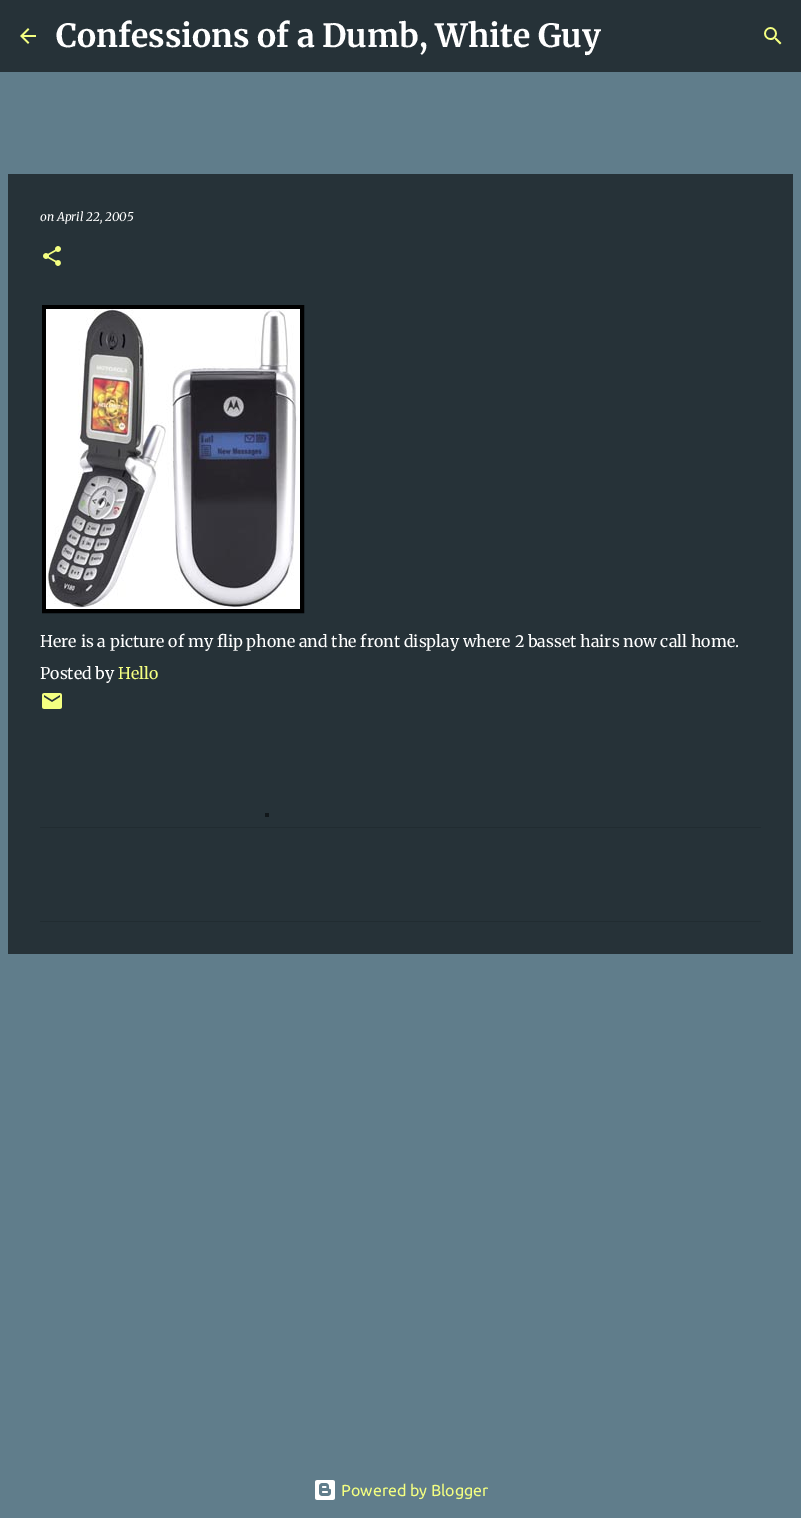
%!PS
<< /PageSize [801 1518] >> setpagedevice
/picture { 5 dict begin { /h /w /y /x /name } { exch def } forall
  gsave x y translate w h scale
  w h 8 [w 0 0 h 0 0] name (r) file false 3 colorimage grestore end } def
0 1518 translate 1 -1 scale
4 setmiterlimit
0.376 0.49 0.545 setrgbcolor
0 0 801 1518 rectfill
0.149 0.196 0.22 setrgbcolor
0 0 801 72 rectfill
(img1.rgb) 20 28 16 16 picture
/Merriweather-Bold [32 0 0 -32 0 0] selectfont
1 setgray
56 47 moveto (Confessions of a Dumb, White Guy) show
(img2.rgb) 764 27 18 18 picture
0.149 0.196 0.22 setrgbcolor
8 174 785 780 rectfill
0.129 0.173 0.192 setrgbcolor
40 827 721 1 rectfill
40 921 721 1 rectfill
/Merriweather-Italic [12 0 0 -12 0 0] selectfont
1 setgray
40 221 moveto (on April 22, 2005) show
(img3.rgb) 43 246 18 20 picture
0 setgray
4 setlinewidth
44 307 258 304 rectstroke
(img4.rgb) 46 309 254 300 picture
/Merriweather-Regular [16 0 0 -16 0 0] selectfont
1 setgray
40 647 moveto (Here is a picture of my flip phone and the front display where 2 basset hairs now call home.) show
40 679 moveto (Posted by) show
0.957 1 0.506 setrgbcolor
118 679 moveto (Hello) show
(img5.rgb) 42 693 20 16 picture
(img6.rgb) 315 1480 20 20 picture
/Ubuntu-Regular [16 0 0 -16 0 0] selectfont
341 1496 moveto (Powered by Blogger) show
0.067 0.09 0.102 setrgbcolor
265 813 4 4 rectfill
showpage
